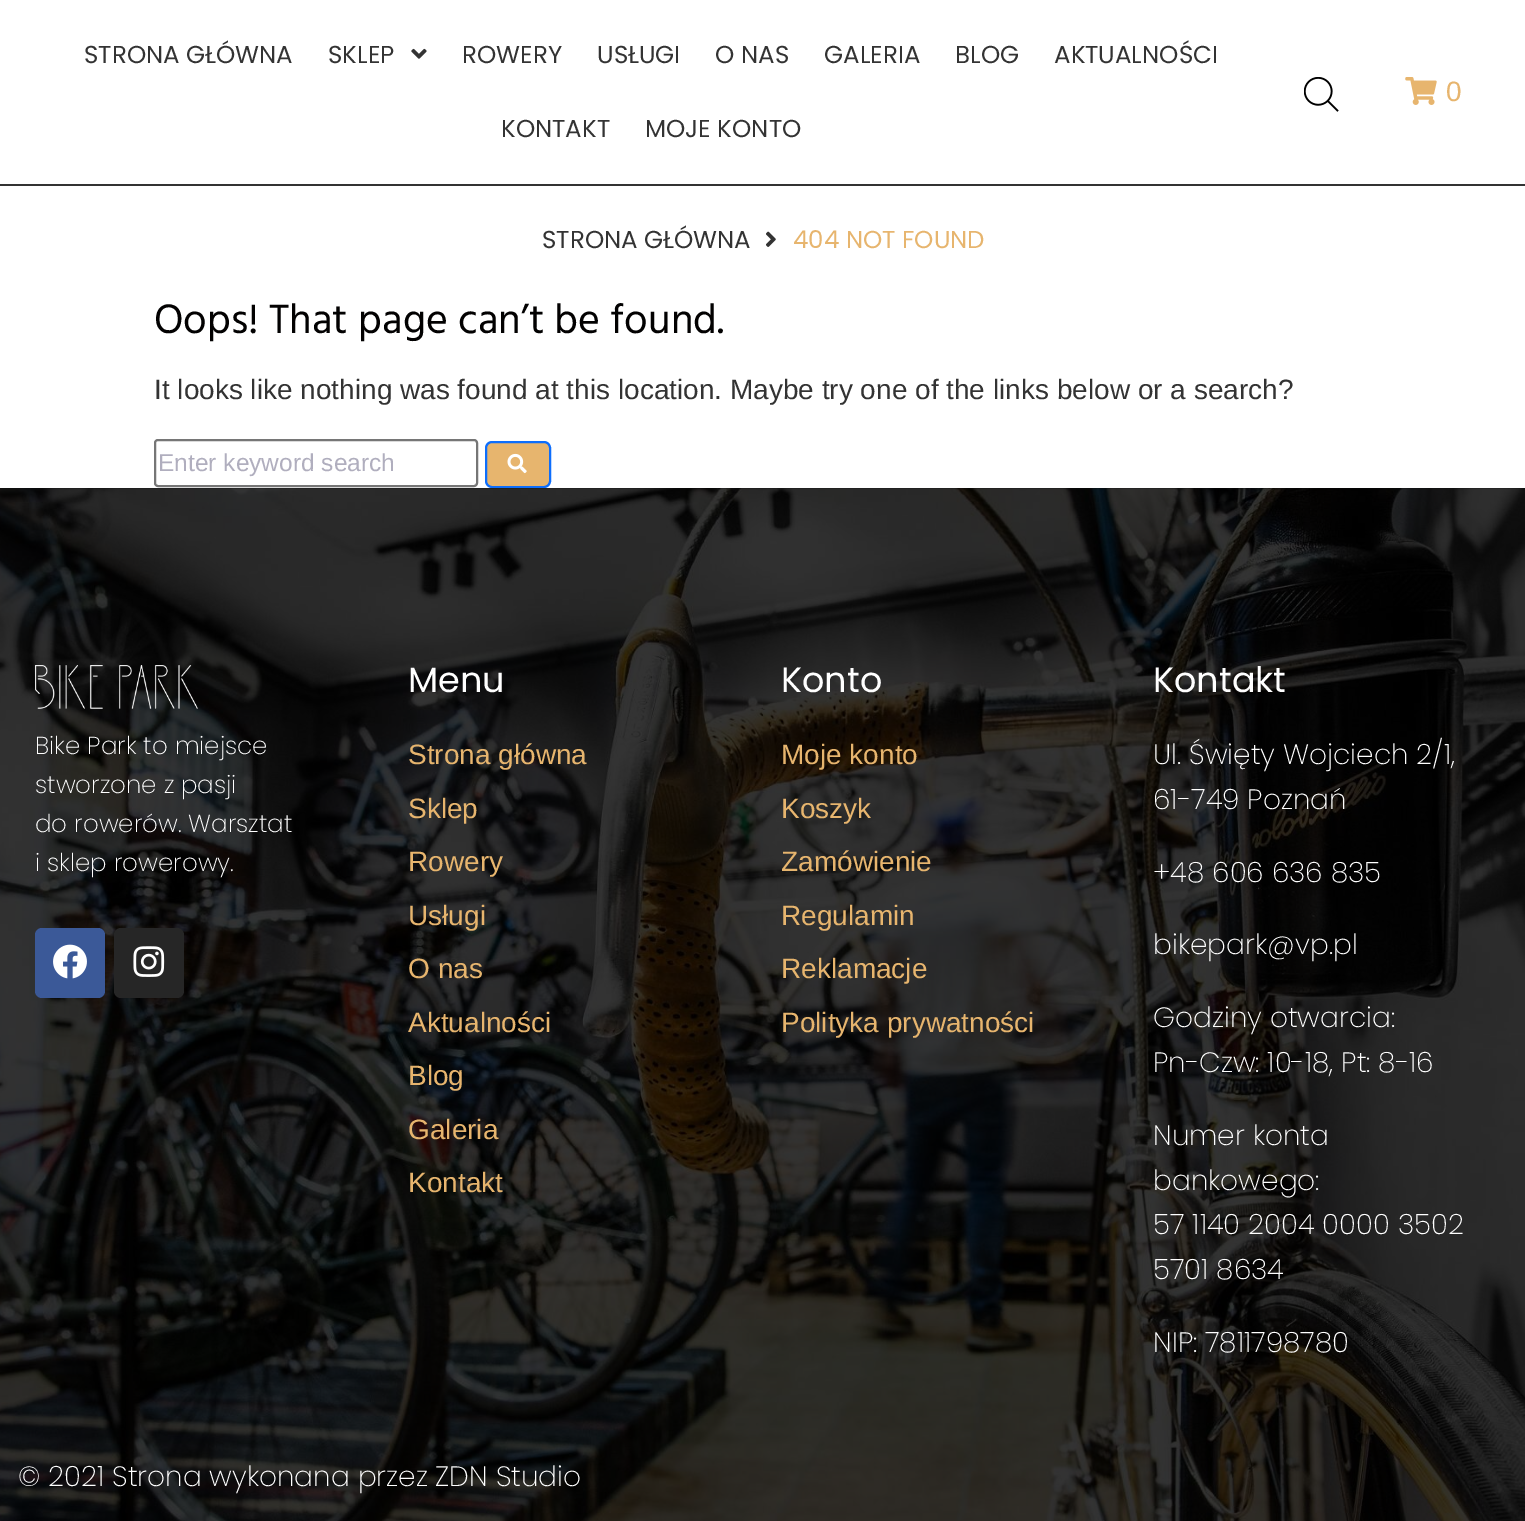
%!PS
<< /PageSize [1525 1521] >> setpagedevice
/roundrect { 5 dict begin { /r /h /w /y /x } { exch def } forall
  x r add y moveto x w add y 2 copy h add r arct x w add y h add x 1 index r arct
  x y h add x y r arct x y 2 copy exch w add exch r arct closepath end } def
/picture { 5 dict begin { /h /w /y /x /name } { exch def } forall
  gsave x y translate w h scale
  w h 8 [w 0 0 h 0 0] name (r) file false 3 colorimage grestore end } def
0 1521 translate 1 -1 scale
4 setmiterlimit
1 setgray
0 0 1525 1521 rectfill
/Poppins-Regular [24.5 0 0 -24.5 0 0] selectfont
0.2 setgray
84 63 moveto (STRONA GŁÓWNA) show
328 63 moveto (SKLEP) show
(img1.rgb) 411 48 16 11 picture
462 63 moveto (ROWERY) show
597 63 moveto (USŁUGI) show
715 63 moveto (O NAS) show
824 63 moveto (GALERIA) show
955 63 moveto (BLOG) show
1054 63 moveto (AKTUALNOŚCI) show
501 137 moveto (KONTAKT) show
645 137 moveto (MOJE KONTO) show
(img2.rgb) 1304 77 35 35 picture
(img3.rgb) 1405 77 32 28 picture
/LiberationSans-Regular [28 0 0 -28 0 0] selectfont
0.906 0.71 0.431 setrgbcolor
1446 101 moveto (0) show
0.2 setgray
0 184 1525 2 rectfill
/Poppins-Regular [24.5 0 0 -24.5 0 0] selectfont
542 248 moveto (STRONA GŁÓWNA) show
(img4.rgb) 766 231 10 16 picture
0.906 0.71 0.431 setrgbcolor
793 248 moveto (404 NOT FOUND) show
/Hind-Regular [42 0 0 -42 0 0] selectfont
0.008 0.004 0.004 setrgbcolor
154 333 moveto (Oops! That page can’t be found.) show
/LiberationSans-Regular [28 0 0 -28 0 0] selectfont
0.2 setgray
154 399 moveto (It looks like nothing was found at this location. Maybe try one of the links below or a search?) show
0.463 setgray
2 setlinewidth
155 440 322 46 3 roundrect stroke
/LiberationSans-Regular [24.5 0 0 -24.5 0 0] selectfont
0.69 0.682 0.745 setrgbcolor
158 471 moveto (Enter keyword search) show
0.906 0.71 0.431 setrgbcolor
486 442 64 45 6 roundrect gsave fill grestore
0.051 0.431 0.992 setrgbcolor
stroke
(img5.rgb) 507 453 20 21 picture
(img6.rgb) 0 488 1525 1033 picture
(img7.rgb) 35 665 163 44 picture
/Poppins-ExtraLight [24.5 0 0 -24.5 0 0] selectfont
1 setgray
35 754 moveto (Bike Park to miejsce) show
35 793 moveto (stworzone z pasji) show
35 832 moveto (do rowerów. Warsztat) show
35 871 moveto (i sklep rowerowy.) show
0.231 0.349 0.596 setrgbcolor
35 928 70 70 7 roundrect fill
(img8.rgb) 53 944 34 35 picture
0.149 setgray
114 928 70 70 7 roundrect fill
(img9.rgb) 133 946 32 31 picture
/Poppins-Regular [35 0 0 -35 0 0] selectfont
1 setgray
408 692 moveto (Menu) show
/LiberationSans-Regular [28 0 0 -28 0 0] selectfont
0.906 0.71 0.431 setrgbcolor
408 764 moveto (Strona główna) show
408 818 moveto (Sklep) show
408 871 moveto (Rowery) show
408 925 moveto (Usługi) show
408 978 moveto (O nas) show
408 1032 moveto (Aktualności) show
408 1085 moveto (Blog) show
408 1139 moveto (Galeria) show
408 1192 moveto (Kontakt) show
/Poppins-Regular [35 0 0 -35 0 0] selectfont
1 setgray
781 692 moveto (Konto) show
/LiberationSans-Regular [28 0 0 -28 0 0] selectfont
0.906 0.71 0.431 setrgbcolor
781 764 moveto (Moje konto) show
781 818 moveto (Koszyk) show
781 871 moveto (Zamówienie) show
781 925 moveto (Regulamin) show
781 978 moveto (Reklamacje) show
781 1032 moveto (Polityka prywatności) show
/Poppins-Regular [35 0 0 -35 0 0] selectfont
1 setgray
1153 692 moveto (Kontakt) show
/Poppins-ExtraLight [28 0 0 -28 0 0] selectfont
1153 764 moveto (Ul. Święty Wojciech 2/1,) show
1153 809 moveto (61-749 Poznań) show
1153 882 moveto (+48 606 636 835) show
1153 954 moveto (bikepark@vp.pl) show
1153 1027 moveto (Godziny otwarcia:) show
1153 1072 moveto (Pn-Czw: 10-18, Pt: 8-16) show
1153 1145 moveto (Numer konta) show
1153 1190 moveto (bankowego:) show
1153 1234 moveto (57 1140 2004 0000 3502) show
1153 1279 moveto (5701 8634) show
1153 1352 moveto (NIP: 7811798780) show
18 1486 moveto (© 2021 Strona wykonana przez ZDN Studio) show
showpage
